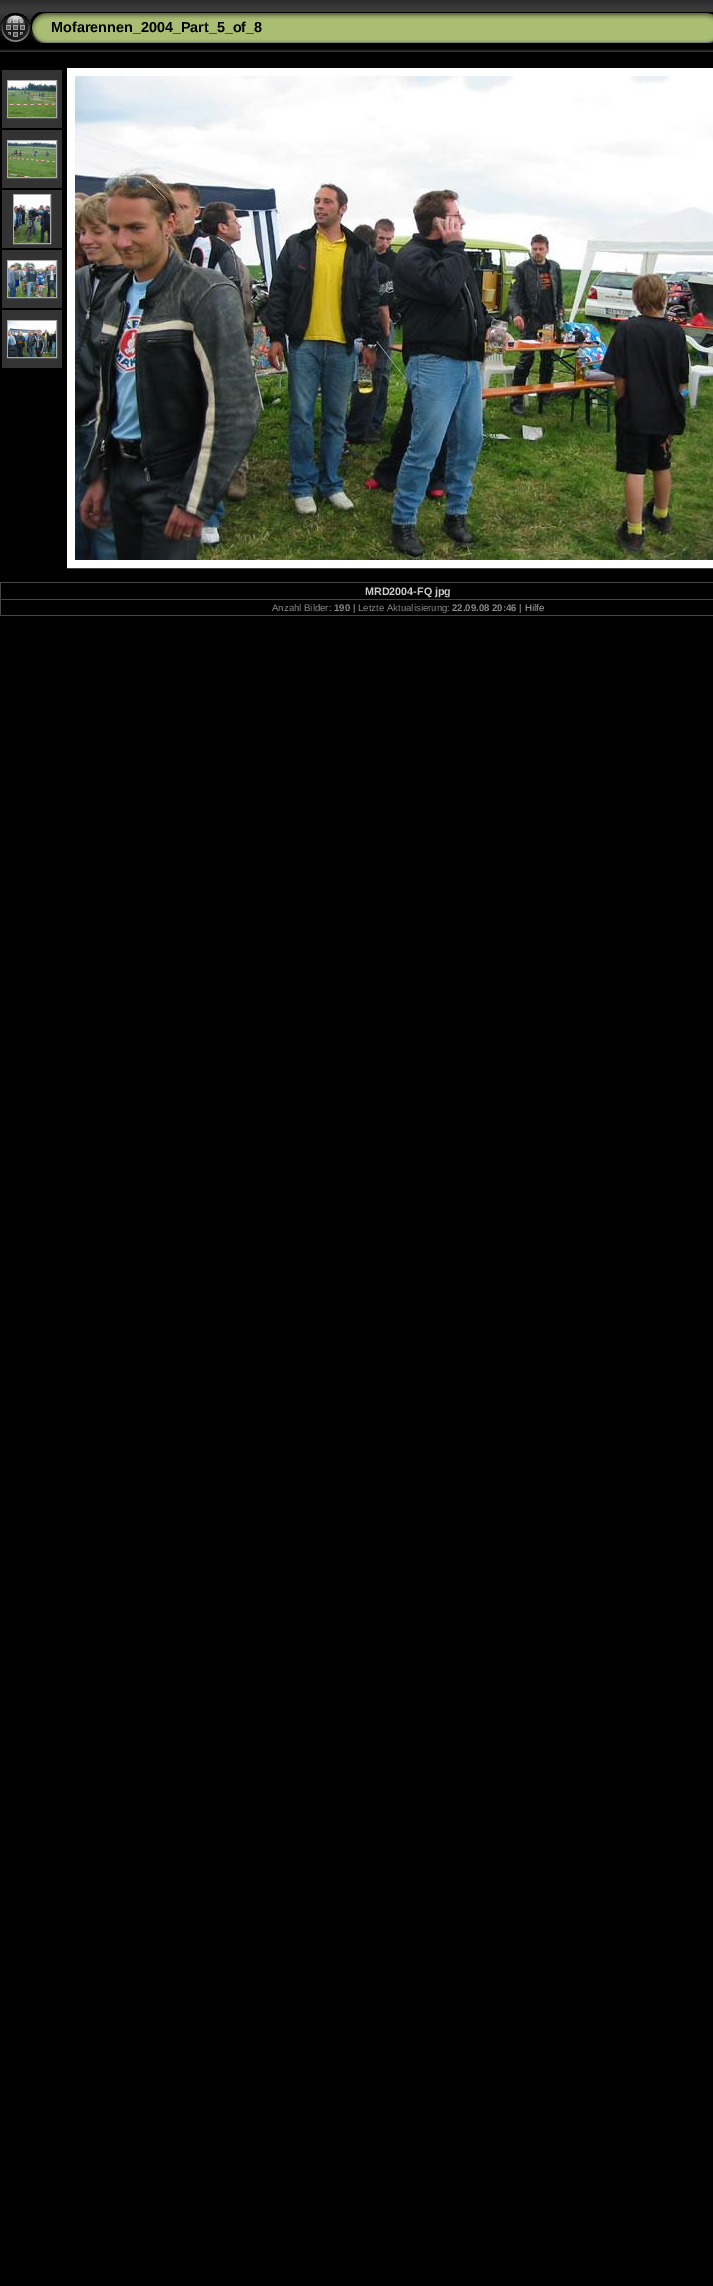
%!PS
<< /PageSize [713 2286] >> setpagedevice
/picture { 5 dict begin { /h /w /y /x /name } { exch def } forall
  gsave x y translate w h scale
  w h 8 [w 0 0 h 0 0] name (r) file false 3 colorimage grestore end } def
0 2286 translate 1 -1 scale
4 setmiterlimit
0 setgray
0 0 713 2286 rectfill
(img1.rgb) 0 0 713 52 picture
(img2.rgb) 1 13 29 29 picture
(img3.rgb) 31 12 20 31 picture
(img4.rgb) 51 12 652 31 picture
/LiberationSans-Bold [14.4 0 0 -14.4 0 0] selectfont
51 32 moveto (Mofarennen_2004_Part_5_of_8) show
(img5.rgb) 703 12 10 31 picture
0.2 setgray
2 70 60 58 rectfill
0.667 setgray
7.5 80.5 49 37 rectstroke
(img6.rgb) 8 81 48 36 picture
0.2 setgray
2 130 60 58 rectfill
0.667 setgray
7.5 140.5 49 37 rectstroke
(img7.rgb) 8 141 48 36 picture
0.2 setgray
2 190 60 58 rectfill
0.667 setgray
13.5 194.5 37 49 rectstroke
(img8.rgb) 14 195 36 48 picture
0.2 setgray
2 250 60 58 rectfill
0.667 setgray
7.5 260.5 49 37 rectstroke
(img9.rgb) 8 261 48 36 picture
0.2 setgray
2 310 60 58 rectfill
0.667 setgray
7.5 320.5 49 37 rectstroke
(img10.rgb) 8 321 48 36 picture
1 setgray
8 setlinewidth
71 72 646 492 rectstroke
(img11.rgb) 75 76 638 484 picture
0.267 setgray
0 582 713 1 rectfill
0 615 713 1 rectfill
0 582 1 34 rectfill
/LiberationSans-Bold [10.75 0 0 -10.75 0 0] selectfont
0.8 setgray
365 595 moveto (MRD2004-FQ jpg) show
0.267 setgray
0 599 713 1 rectfill
/LiberationSans-Regular [9.6 0 0 -9.6 0 0] selectfont
0.533 setgray
272 611 moveto (Anzahl Bilder:) show
/LiberationSans-Bold [9.6 0 0 -9.6 0 0] selectfont
334 611 moveto (190) show
/LiberationSans-Regular [9.6 0 0 -9.6 0 0] selectfont
353 611 moveto (| Letzte Aktualisierung:) show
/LiberationSans-Bold [9.6 0 0 -9.6 0 0] selectfont
452 611 moveto (22.09.08 20:46) show
/LiberationSans-Regular [9.6 0 0 -9.6 0 0] selectfont
519 611 moveto (|) show
0.667 setgray
525 611 moveto (Hilfe) show
showpage
